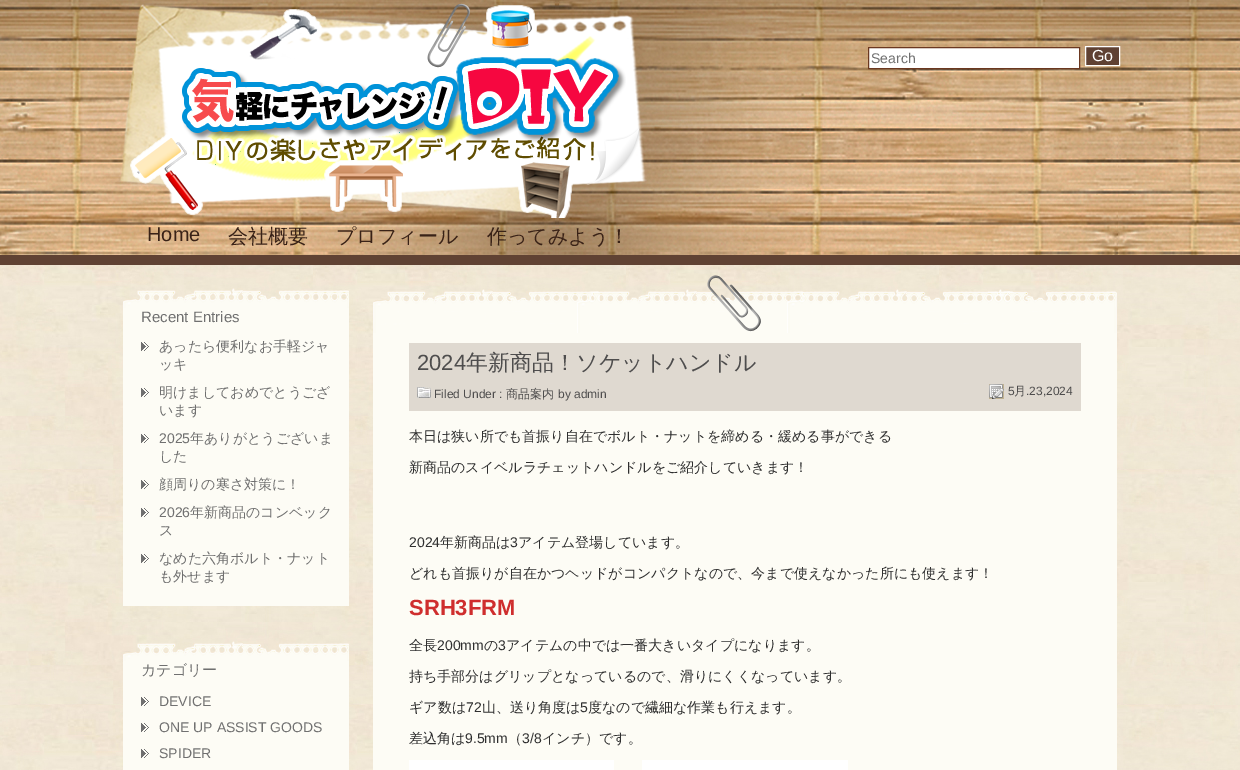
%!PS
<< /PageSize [1240 770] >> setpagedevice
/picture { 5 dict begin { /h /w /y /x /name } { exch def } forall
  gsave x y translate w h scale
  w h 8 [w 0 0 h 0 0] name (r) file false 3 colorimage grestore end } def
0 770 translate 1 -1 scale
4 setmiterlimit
1 setgray
0 0 1240 770 rectfill
(img1.rgb) 0 265 1240 505 picture
(img2.rgb) 0 0 1240 255 picture
0.376 0.259 0.2 setrgbcolor
0 255 1240 10 rectfill
(img3.rgb) 120 3 527 215 picture
1 setgray
newpath 868.5 47.5 moveto 1079.5 47.5 lineto 1079.5 68.5 lineto 868.5 68.5 lineto closepath gsave fill grestore
0.42 0.22 0.125 setrgbcolor
stroke
/LiberationSans-Regular [14 0 0 -14 0 0] selectfont
0.439 setgray
871 63 moveto (Search) show
0.373 0.255 0.2 setrgbcolor
newpath 1085.5 46.5 moveto 1119.5 46.5 lineto 1119.5 65.5 lineto 1085.5 65.5 lineto closepath gsave fill grestore
1 setgray
stroke
/LiberationSans-Regular [16 0 0 -16 0 0] selectfont
1092 61 moveto (Go) show
/LiberationSans-Regular [20 0 0 -20 0 0] selectfont
0.224 0.133 0.09 setrgbcolor
147 241 moveto (Home) show
/WenQuanYiZenHei-Medium [20 0 0 -20 0 0] selectfont
228 243 moveto (会社概要) show
336 243 moveto (プロフィール) show
487 243 moveto (作ってみよう！) show
(img4.rgb) 123 288 226 20 picture
0.992 0.988 0.961 setrgbcolor
123 308 226 298 rectfill
/LiberationSans-Regular [15 0 0 -15 0 0] selectfont
0.439 setgray
141 322 moveto (Recent Entries) show
(img5.rgb) 141 342 8 9 picture
/WenQuanYiZenHei-Medium [14 0 0 -14 0 0] selectfont
159 351 moveto (あったら便利なお手軽ジャ) show
159 369 moveto (ッキ) show
(img5.rgb) 141 388 8 9 picture
159 397 moveto (明けましておめでとうござ) show
159 415 moveto (います) show
(img5.rgb) 141 434 8 9 picture
/LiberationSans-Regular [14 0 0 -14 0 0] selectfont
159 443 moveto (2025) show
/WenQuanYiZenHei-Medium [14 0 0 -14 0 0] selectfont
190 443 moveto (年ありがとうございま) show
159 461 moveto (した) show
(img5.rgb) 141 480 8 9 picture
159 489 moveto (顔周りの寒さ対策に！) show
(img5.rgb) 141 508 8 9 picture
/LiberationSans-Regular [14 0 0 -14 0 0] selectfont
159 517 moveto (2026) show
/WenQuanYiZenHei-Medium [14 0 0 -14 0 0] selectfont
190 517 moveto (年新商品のコンベック) show
159 535 moveto (ス) show
(img5.rgb) 141 554 8 9 picture
159 563 moveto (なめた六角ボルト・ナット) show
159 581 moveto (も外せます) show
(img6.rgb) 123 641 226 20 picture
0.992 0.988 0.961 setrgbcolor
123 661 226 109 rectfill
/WenQuanYiZenHei-Medium [15 0 0 -15 0 0] selectfont
0.439 setgray
141 675 moveto (カテゴリー) show
(img5.rgb) 141 697 8 9 picture
/LiberationSans-Regular [14 0 0 -14 0 0] selectfont
159 706 moveto (DEVICE) show
(img5.rgb) 141 723 8 9 picture
159 732 moveto (ONE UP ASSIST GOODS) show
(img5.rgb) 141 749 8 9 picture
159 758 moveto (SPIDER) show
(img7.rgb) 373 275 744 58 picture
0.992 0.988 0.961 setrgbcolor
373 333 744 437 rectfill
0.875 0.851 0.816 setrgbcolor
409 343 672 68 rectfill
/LiberationSans-Regular [22 0 0 -22 0 0] selectfont
0.306 0.302 0.302 setrgbcolor
417 370 moveto (2024) show
/WenQuanYiZenHei-Medium [22 0 0 -22 0 0] selectfont
466 370 moveto (年新商品！ソケットハンドル) show
(img8.rgb) 417 387 14 11 picture
/LiberationSans-Regular [12 0 0 -12 0 0] selectfont
434 398 moveto (Filed Under :) show
/WenQuanYiZenHei-Medium [12 0 0 -12 0 0] selectfont
506 398 moveto (商品案内) show
/LiberationSans-Regular [12 0 0 -12 0 0] selectfont
558 398 moveto (by admin) show
(img9.rgb) 989 384 15 15 picture
1008 395 moveto (5) show
/WenQuanYiZenHei-Medium [12 0 0 -12 0 0] selectfont
1014 395 moveto (月) show
/LiberationSans-Regular [12 0 0 -12 0 0] selectfont
1026 395 moveto (.23,2024) show
/WenQuanYiZenHei-Medium [14 0 0 -14 0 0] selectfont
0.184 setgray
409 441 moveto (本日は狭い所でも首振り自在でボルト・ナットを締める・緩める事ができる) show
409 472 moveto (新商品のスイベルラチェットハンドルをご紹介していきます！) show
/LiberationSans-Regular [14 0 0 -14 0 0] selectfont
409 547 moveto (2024) show
/WenQuanYiZenHei-Medium [14 0 0 -14 0 0] selectfont
440 547 moveto (年新商品は) show
/LiberationSans-Regular [14 0 0 -14 0 0] selectfont
510 547 moveto (3) show
/WenQuanYiZenHei-Medium [14 0 0 -14 0 0] selectfont
518 547 moveto (アイテム登場しています。) show
409 578 moveto (どれも首振りが自在かつヘッドがコンパクトなので、今まで使えなかった所にも使えます！) show
/LiberationSans-Bold [22 0 0 -22 0 0] selectfont
0.812 0.18 0.18 setrgbcolor
409 615 moveto (SRH3FRM) show
/WenQuanYiZenHei-Medium [14 0 0 -14 0 0] selectfont
0.184 setgray
409 650 moveto (全長) show
/LiberationSans-Regular [14 0 0 -14 0 0] selectfont
437 650 moveto (200mm) show
/WenQuanYiZenHei-Medium [14 0 0 -14 0 0] selectfont
484 650 moveto (の) show
/LiberationSans-Regular [14 0 0 -14 0 0] selectfont
498 650 moveto (3) show
/WenQuanYiZenHei-Medium [14 0 0 -14 0 0] selectfont
506 650 moveto (アイテムの中では一番大きいタイプになります。) show
409 681 moveto (持ち手部分はグリップとなっているので、滑りにくくなっています。) show
409 712 moveto (ギア数は) show
/LiberationSans-Regular [14 0 0 -14 0 0] selectfont
466 712 moveto (72) show
/WenQuanYiZenHei-Medium [14 0 0 -14 0 0] selectfont
482 712 moveto (山、送り角度は) show
/LiberationSans-Regular [14 0 0 -14 0 0] selectfont
580 712 moveto (5) show
/WenQuanYiZenHei-Medium [14 0 0 -14 0 0] selectfont
588 712 moveto (度なので繊細な作業も行えます。) show
409 743 moveto (差込角は) show
/LiberationSans-Regular [14 0 0 -14 0 0] selectfont
465 743 moveto (9.5mm) show
/WenQuanYiZenHei-Medium [14 0 0 -14 0 0] selectfont
508 743 moveto (（) show
/LiberationSans-Regular [14 0 0 -14 0 0] selectfont
522 743 moveto (3/8) show
/WenQuanYiZenHei-Medium [14 0 0 -14 0 0] selectfont
542 743 moveto (インチ）です。) show
1 setgray
409 760 205 10 rectfill
642 760 206 10 rectfill
showpage
